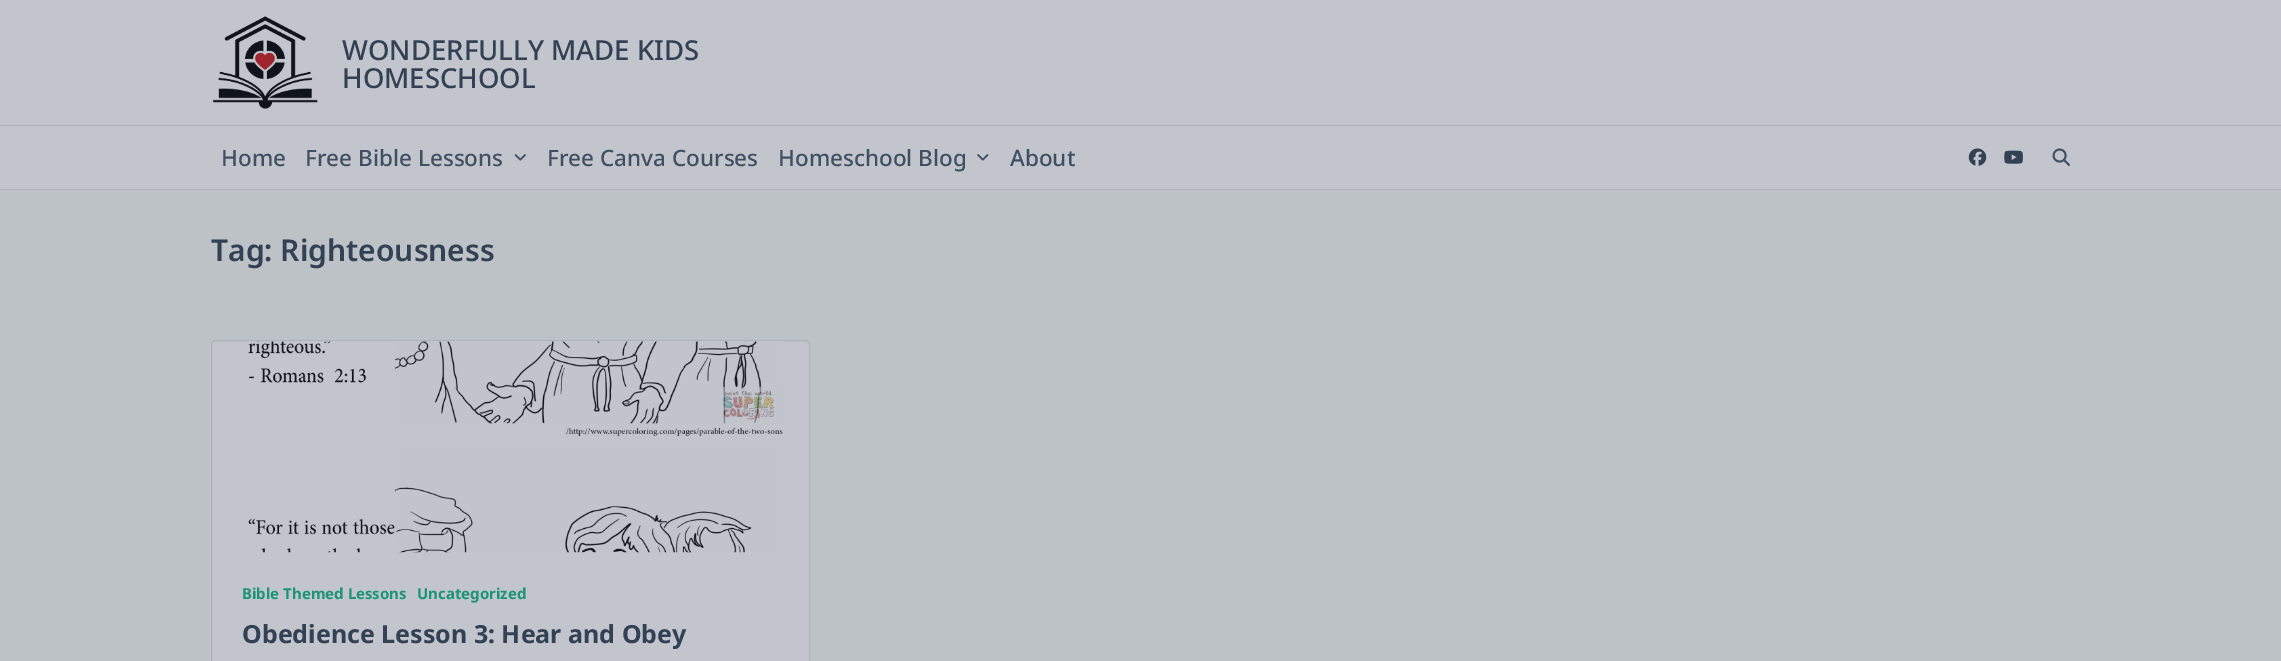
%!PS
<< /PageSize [2281 661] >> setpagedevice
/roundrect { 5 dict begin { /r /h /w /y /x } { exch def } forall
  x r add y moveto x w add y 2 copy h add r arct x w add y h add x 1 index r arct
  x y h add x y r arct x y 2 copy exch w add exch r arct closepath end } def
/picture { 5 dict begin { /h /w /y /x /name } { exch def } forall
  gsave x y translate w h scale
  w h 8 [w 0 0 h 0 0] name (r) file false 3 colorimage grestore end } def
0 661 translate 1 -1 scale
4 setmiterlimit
0.741 0.761 0.78 setrgbcolor
0 0 2281 661 rectfill
0.761 0.776 0.8 setrgbcolor
0 0 2281 125 rectfill
0.675 0.698 0.714 setrgbcolor
0 125 2281 1 rectfill
(img1.rgb) 212 16 106 93 picture
/NotoSans-Medium [27.5 0 0 -27.5 0 0] selectfont
0.2 0.255 0.333 setrgbcolor
342 60 moveto (WONDERFULLY MADE KIDS) show
342 88 moveto (HOMESCHOOL) show
0.761 0.776 0.8 setrgbcolor
0 126 2281 63 rectfill
0.675 0.698 0.714 setrgbcolor
0 189 2281 1 rectfill
/NotoSans-Medium [22.5 0 0 -22.5 0 0] selectfont
0.255 0.31 0.388 setrgbcolor
221 166 moveto (Home) show
305 166 moveto (Free Bible Lessons) show
(img2.rgb) 514 154 12 7 picture
547 166 moveto (Free Canva Courses) show
778 166 moveto (Homeschool Blog) show
(img3.rgb) 977 154 12 7 picture
1010 166 moveto (About) show
(img4.rgb) 1968 148 19 18 picture
(img5.rgb) 2004 150 19 14 picture
(img6.rgb) 2052 148 18 18 picture
/NotoSans-SemiBold [30 0 0 -30 0 0] selectfont
0.2 0.255 0.333 setrgbcolor
211 261 moveto (Tag: Righteousness) show
0.761 0.776 0.8 setrgbcolor
211.5 340.5 598 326 4.5 roundrect gsave fill grestore
0.675 0.698 0.714 setrgbcolor
stroke
(img7.rgb) 248 341 535 212 picture
/NotoSans-Bold [15 0 0 -15 0 0] selectfont
0.106 0.584 0.455 setrgbcolor
242 599 moveto (Bible Themed Lessons) show
417 599 moveto (Uncategorized) show
/NotoSans-Bold [25 0 0 -25 0 0] selectfont
0.2 0.255 0.333 setrgbcolor
242 643 moveto (Obedience Lesson 3: Hear and Obey) show
showpage
